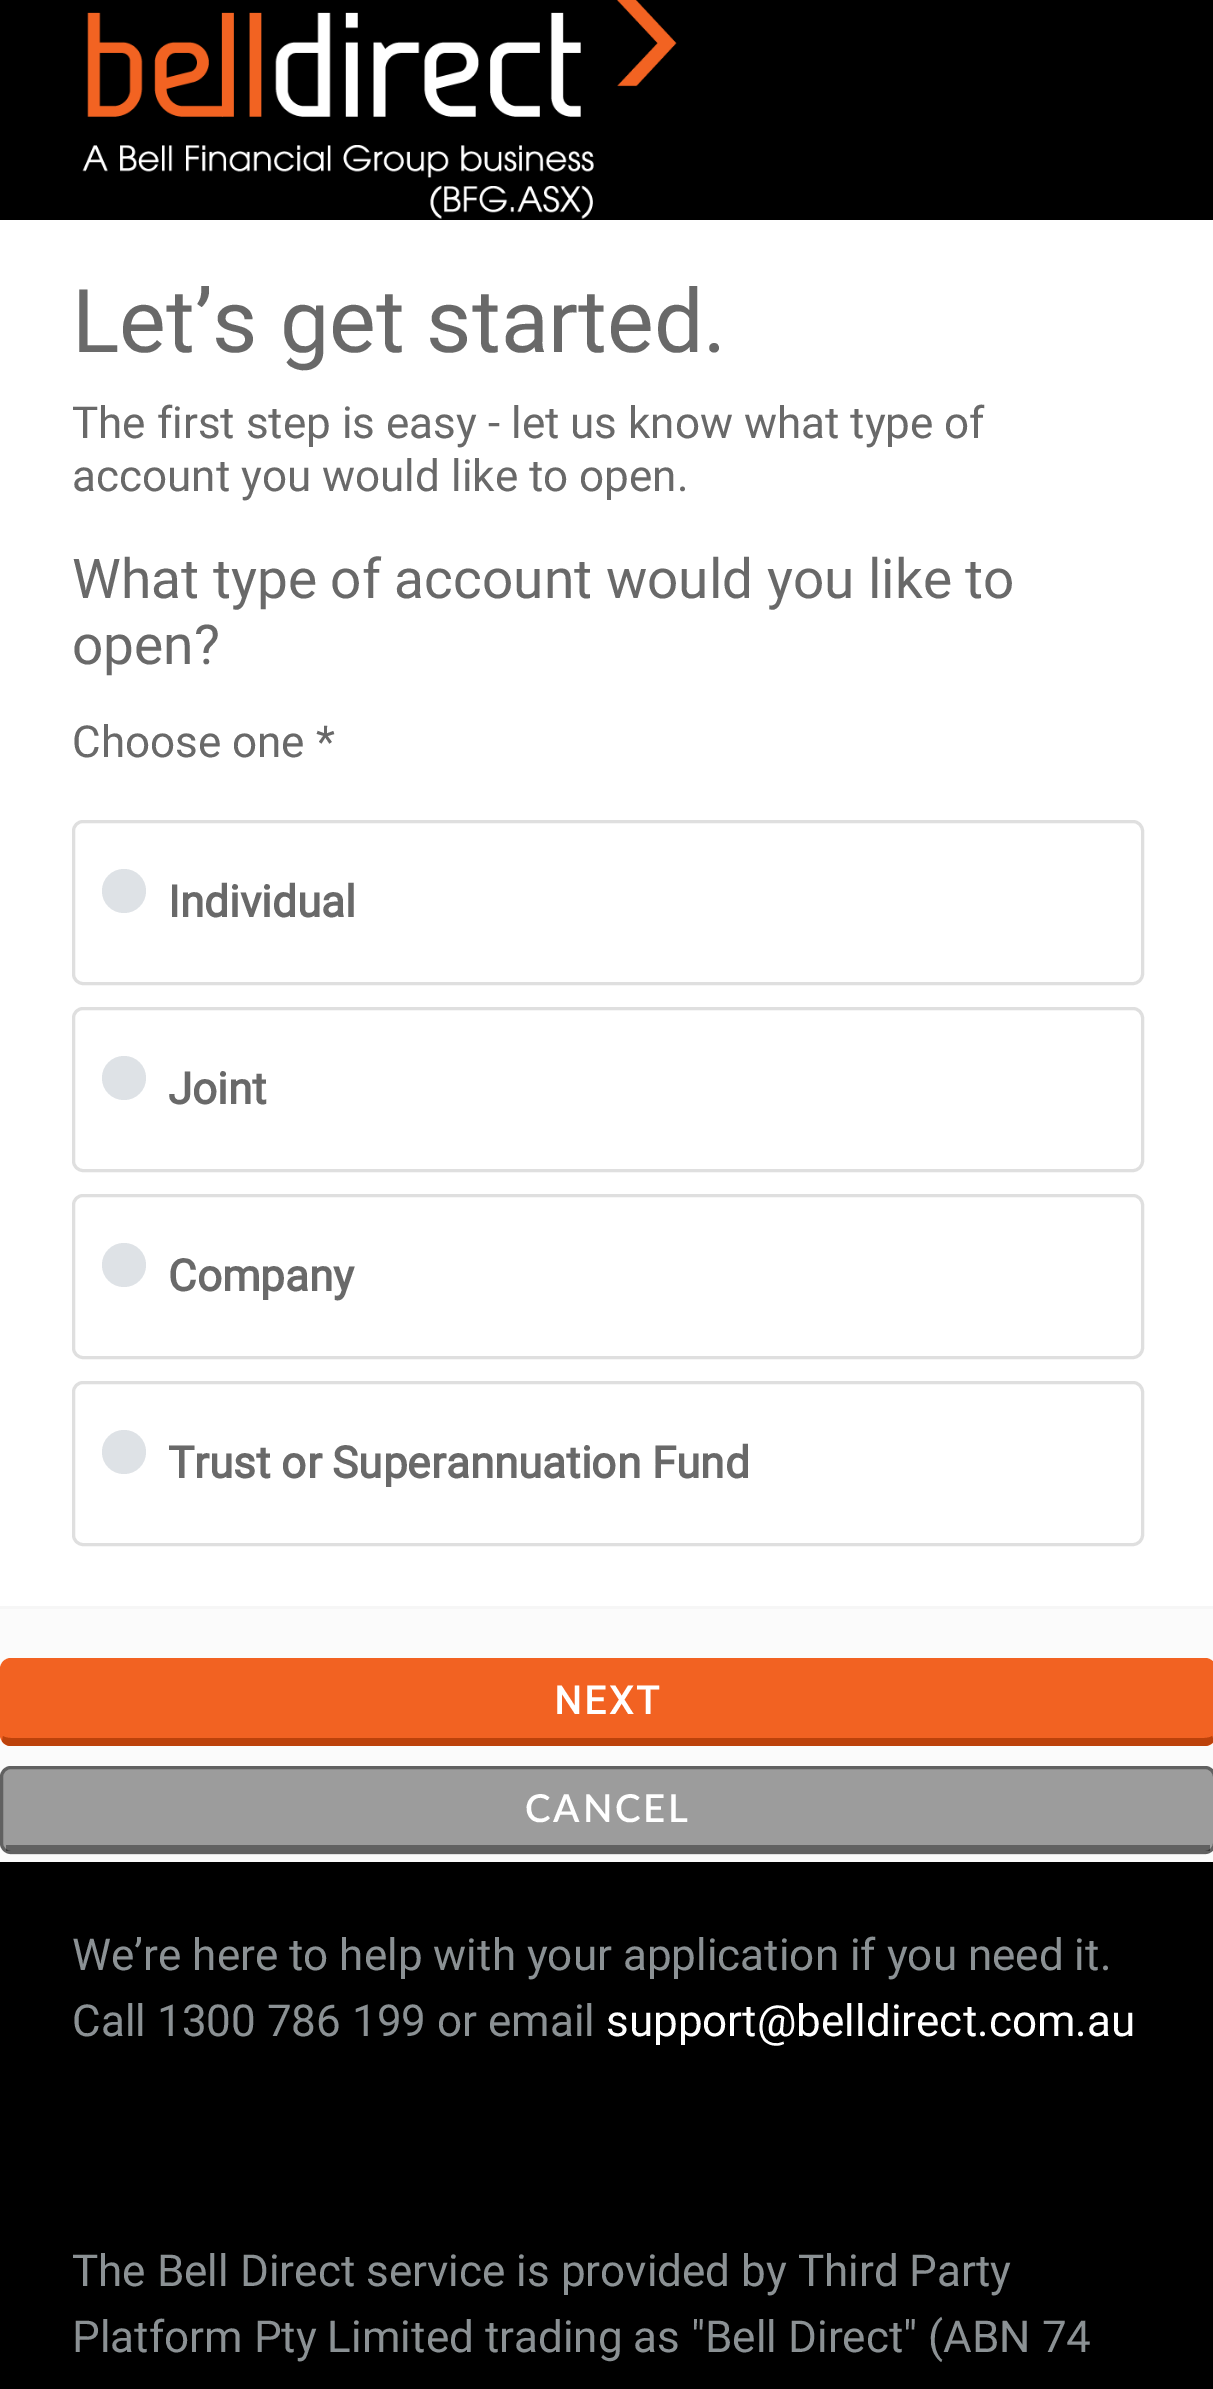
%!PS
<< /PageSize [1213 2389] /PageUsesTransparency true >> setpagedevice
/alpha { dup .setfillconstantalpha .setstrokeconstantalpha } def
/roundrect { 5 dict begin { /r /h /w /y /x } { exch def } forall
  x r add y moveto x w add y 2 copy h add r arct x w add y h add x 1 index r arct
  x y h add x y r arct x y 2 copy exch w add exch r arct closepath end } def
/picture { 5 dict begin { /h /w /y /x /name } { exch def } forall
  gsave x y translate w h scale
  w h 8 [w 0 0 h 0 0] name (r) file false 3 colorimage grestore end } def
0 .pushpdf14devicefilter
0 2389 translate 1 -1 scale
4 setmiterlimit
1 setgray
0 0 1213 2389 rectfill
0 setgray
0 0 1213 220 rectfill
(img1.rgb) 82 0 595 220 picture
/Roboto-Regular [88 0 0 -88 0 0] selectfont
0.412 setgray
72 352 moveto (Let’s get started.) show
/Roboto-Regular [44 0 0 -44 0 0] selectfont
72 438 moveto (The first step is easy - let us know what type of) show
72 491 moveto (account you would like to open.) show
/Roboto-Regular [55 0 0 -55 0 0] selectfont
72 598 moveto (What type of account would you like to) show
72 664 moveto (open?) show
/Roboto-Regular [44 0 0 -44 0 0] selectfont
72 757 moveto (Choose one *) show
0.875 setgray
3 setlinewidth
73.5 821.5 1069 162 9.5 roundrect stroke
0.871 0.886 0.902 setrgbcolor
newpath 124 891 22 0 360 arc closepath fill
/Roboto-Bold [44 0 0 -44 0 0] selectfont
0.412 setgray
168 917 moveto (Individual) show
0.875 setgray
73.5 1008.5 1069 162 9.5 roundrect stroke
0.871 0.886 0.902 setrgbcolor
newpath 124 1078 22 0 360 arc closepath fill
0.412 setgray
168 1104 moveto (Joint) show
0.875 setgray
73.5 1195.5 1069 162 9.5 roundrect stroke
0.871 0.886 0.902 setrgbcolor
newpath 124 1265 22 0 360 arc closepath fill
0.412 setgray
168 1291 moveto (Company) show
0.875 setgray
73.5 1382.5 1069 162 9.5 roundrect stroke
0.871 0.886 0.902 setrgbcolor
newpath 124 1452 22 0 360 arc closepath fill
0.412 setgray
168 1478 moveto (Trust or Superannuation Fund) show
0.984 setgray
0 1609 1213 168 rectfill
0.965 setgray
0 1606 1213 3 rectfill
0.949 0.384 0.133 setrgbcolor
0 1658 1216 88 11 roundrect fill
0.737 0.259 0.043 setrgbcolor
newpath 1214 1741 moveto 1212 1744 1208 1746 1204 1746 curveto 11 1746 lineto 7 1746 4 1744 2 1741 curveto 3 1736 lineto 4 1737 7 1738 11 1738 curveto 1204 1738 lineto 1208 1738 1211 1737 1212 1736 curveto closepath fill
/Roboto-Bold [38.5 0 0 -38.5 0 0] selectfont
1 setgray
554 1714 moveto 2.75 0 (NEXT) ashow
0.984 setgray
0 1843 1213 19 rectfill
0.612 setgray
0 1766 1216 88 11 roundrect fill
0.38 alpha
0 setgray
1.5 1767.5 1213 85 9.5 roundrect stroke
6 1845 1204 6 rectfill
/Lato-SemiBold [38.5 0 0 -38.5 0 0] selectfont
1 alpha
1 setgray
525 1822 moveto 2.75 0 (CANCEL) ashow
0 setgray
0 1862 1213 527 rectfill
/Roboto-Regular [44 0 0 -44 0 0] selectfont
0.545 0.569 0.58 setrgbcolor
72 1970 moveto (We’re here to help with your application if you need it.) show
72 2036 moveto (Call 1300 786 199 or email) show
1 setgray
606 2036 moveto (support@belldirect.com.au) show
0.545 0.569 0.58 setrgbcolor
72 2286 moveto (The Bell Direct service is provided by Third Party) show
72 2352 moveto (Platform Pty Limited trading as "Bell Direct" \(ABN 74) show
.poppdf14devicefilter showpage
